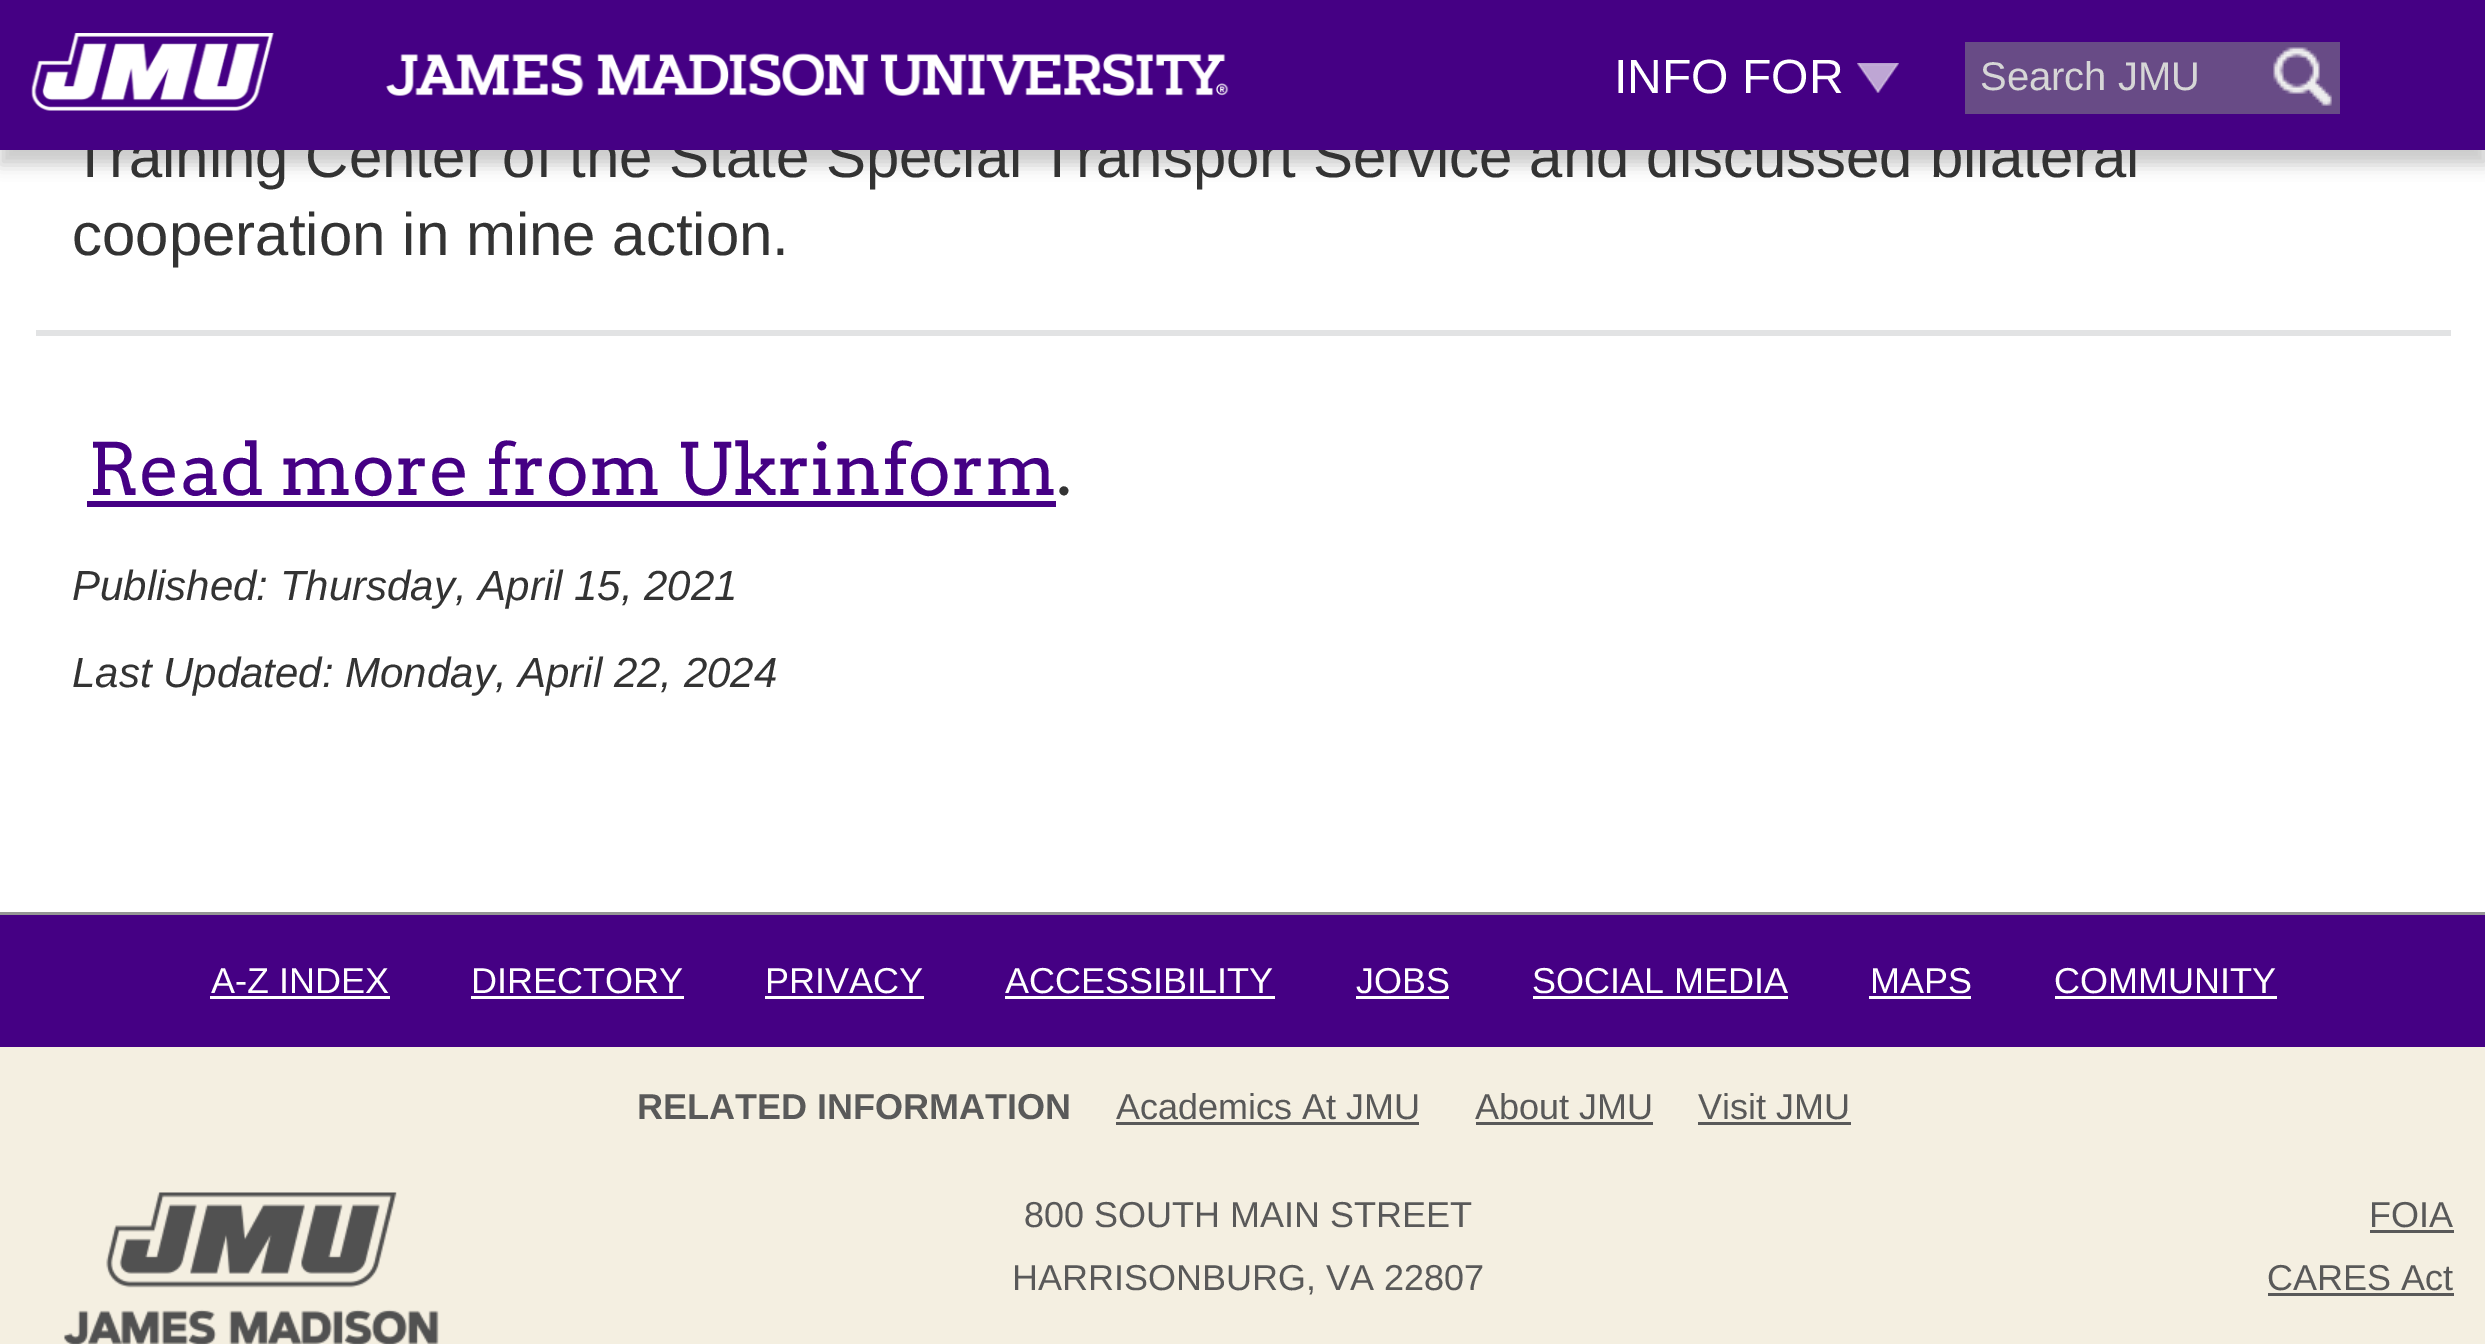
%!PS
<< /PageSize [2485 1344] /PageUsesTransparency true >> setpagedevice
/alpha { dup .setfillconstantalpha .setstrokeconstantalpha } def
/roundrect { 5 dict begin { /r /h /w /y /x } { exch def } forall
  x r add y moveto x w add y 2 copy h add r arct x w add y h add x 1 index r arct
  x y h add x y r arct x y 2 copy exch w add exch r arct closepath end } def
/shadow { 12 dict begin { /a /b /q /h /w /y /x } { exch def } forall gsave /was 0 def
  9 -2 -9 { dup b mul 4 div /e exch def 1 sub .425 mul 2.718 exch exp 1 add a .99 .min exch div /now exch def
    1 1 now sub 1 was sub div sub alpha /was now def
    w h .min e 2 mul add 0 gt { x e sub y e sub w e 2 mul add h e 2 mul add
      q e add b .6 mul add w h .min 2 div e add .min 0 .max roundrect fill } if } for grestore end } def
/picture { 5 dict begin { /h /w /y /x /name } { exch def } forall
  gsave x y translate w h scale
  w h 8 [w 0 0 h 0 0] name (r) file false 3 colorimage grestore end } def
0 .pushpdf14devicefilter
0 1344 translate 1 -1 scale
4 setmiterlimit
1 setgray
0 0 2485 1344 rectfill
0 setgray
0 15 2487 150 0 7.5 0.2 shadow
/LiberationSans-Regular [60 0 0 -60 0 0] selectfont
0.2 setgray
72 177 moveto (Training Center of the State Special Transport Service and discussed bilateral) show
0.271 0 0.518 setrgbcolor
0 0 2485 150 rectfill
(img1.rgb) 31 33 1198 78 picture
/LiberationSans-Regular [48 0 0 -48 0 0] selectfont
1 setgray
1614 93 moveto (INFO FOR) show
(img2.rgb) 1857 63 42 30 picture
0.408 0.294 0.525 setrgbcolor
1965 42 375 72 rectfill
/LiberationSans-Regular [40 0 0 -40 0 0] selectfont
0.839 setgray
1980 90 moveto (Search JMU) show
(img3.rgb) 2273 47 59 59 picture
/LiberationSans-Regular [60 0 0 -60 0 0] selectfont
0.2 setgray
72 255 moveto (cooperation in mine action.) show
0.886 0.89 0.894 setrgbcolor
36 330 2415 6 rectfill
/Arvo-Regular [72 0 0 -72 0 0] selectfont
0.271 0 0.518 setrgbcolor
88 495 moveto (Read more from Ukrinform) show
87 501 969 6 rectfill
0.2 setgray
1056 495 moveto (.) show
/LiberationSans-Italic [42 0 0 -42 0 0] selectfont
72 600 moveto (Published: Thursday, April 15, 2021) show
72 687 moveto (Last Updated: Monday, April 22, 2024) show
0.271 0 0.518 setrgbcolor
0 915 2485 132 rectfill
0.584 setgray
0 912 2485 3 rectfill
/LiberationSans-Regular [36 0 0 -36 0 0] selectfont
1 setgray
211 993 moveto (A-Z INDEX) show
210 996 180 3 rectfill
471 993 moveto (DIRECTORY) show
471 996 213 3 rectfill
765 993 moveto (PRIVACY) show
765 996 159 3 rectfill
1005 993 moveto (ACCESSIBILITY) show
1005 996 270 3 rectfill
1356 993 moveto (JOBS) show
1356 996 93 3 rectfill
1532 993 moveto (SOCIAL MEDIA) show
1533 996 255 3 rectfill
1870 993 moveto (MAPS) show
1869 996 102 3 rectfill
2054 993 moveto (COMMUNITY) show
2055 996 222 3 rectfill
0.957 0.937 0.882 setrgbcolor
0 1047 2485 297 rectfill
/LiberationSans-Bold [36 0 0 -36 0 0] selectfont
0.349 setgray
637 1119 moveto (RELATED INFORMATION) show
/LiberationSans-Regular [36 0 0 -36 0 0] selectfont
1116 1119 moveto (Academics At JMU) show
1116 1122 303 3 rectfill
1475 1119 moveto (About JMU) show
1476 1122 177 3 rectfill
1698 1119 moveto (Visit JMU) show
1698 1122 153 3 rectfill
(img4.rgb) 63 1192 376 152 picture
1024 1227 moveto (800 SOUTH MAIN STREET) show
1012 1290 moveto (HARRISONBURG, VA 22807) show
2369 1227 moveto (FOIA) show
2370 1230 84 3 rectfill
2267 1290 moveto (CARES Act) show
2268 1293 186 3 rectfill
.poppdf14devicefilter showpage
